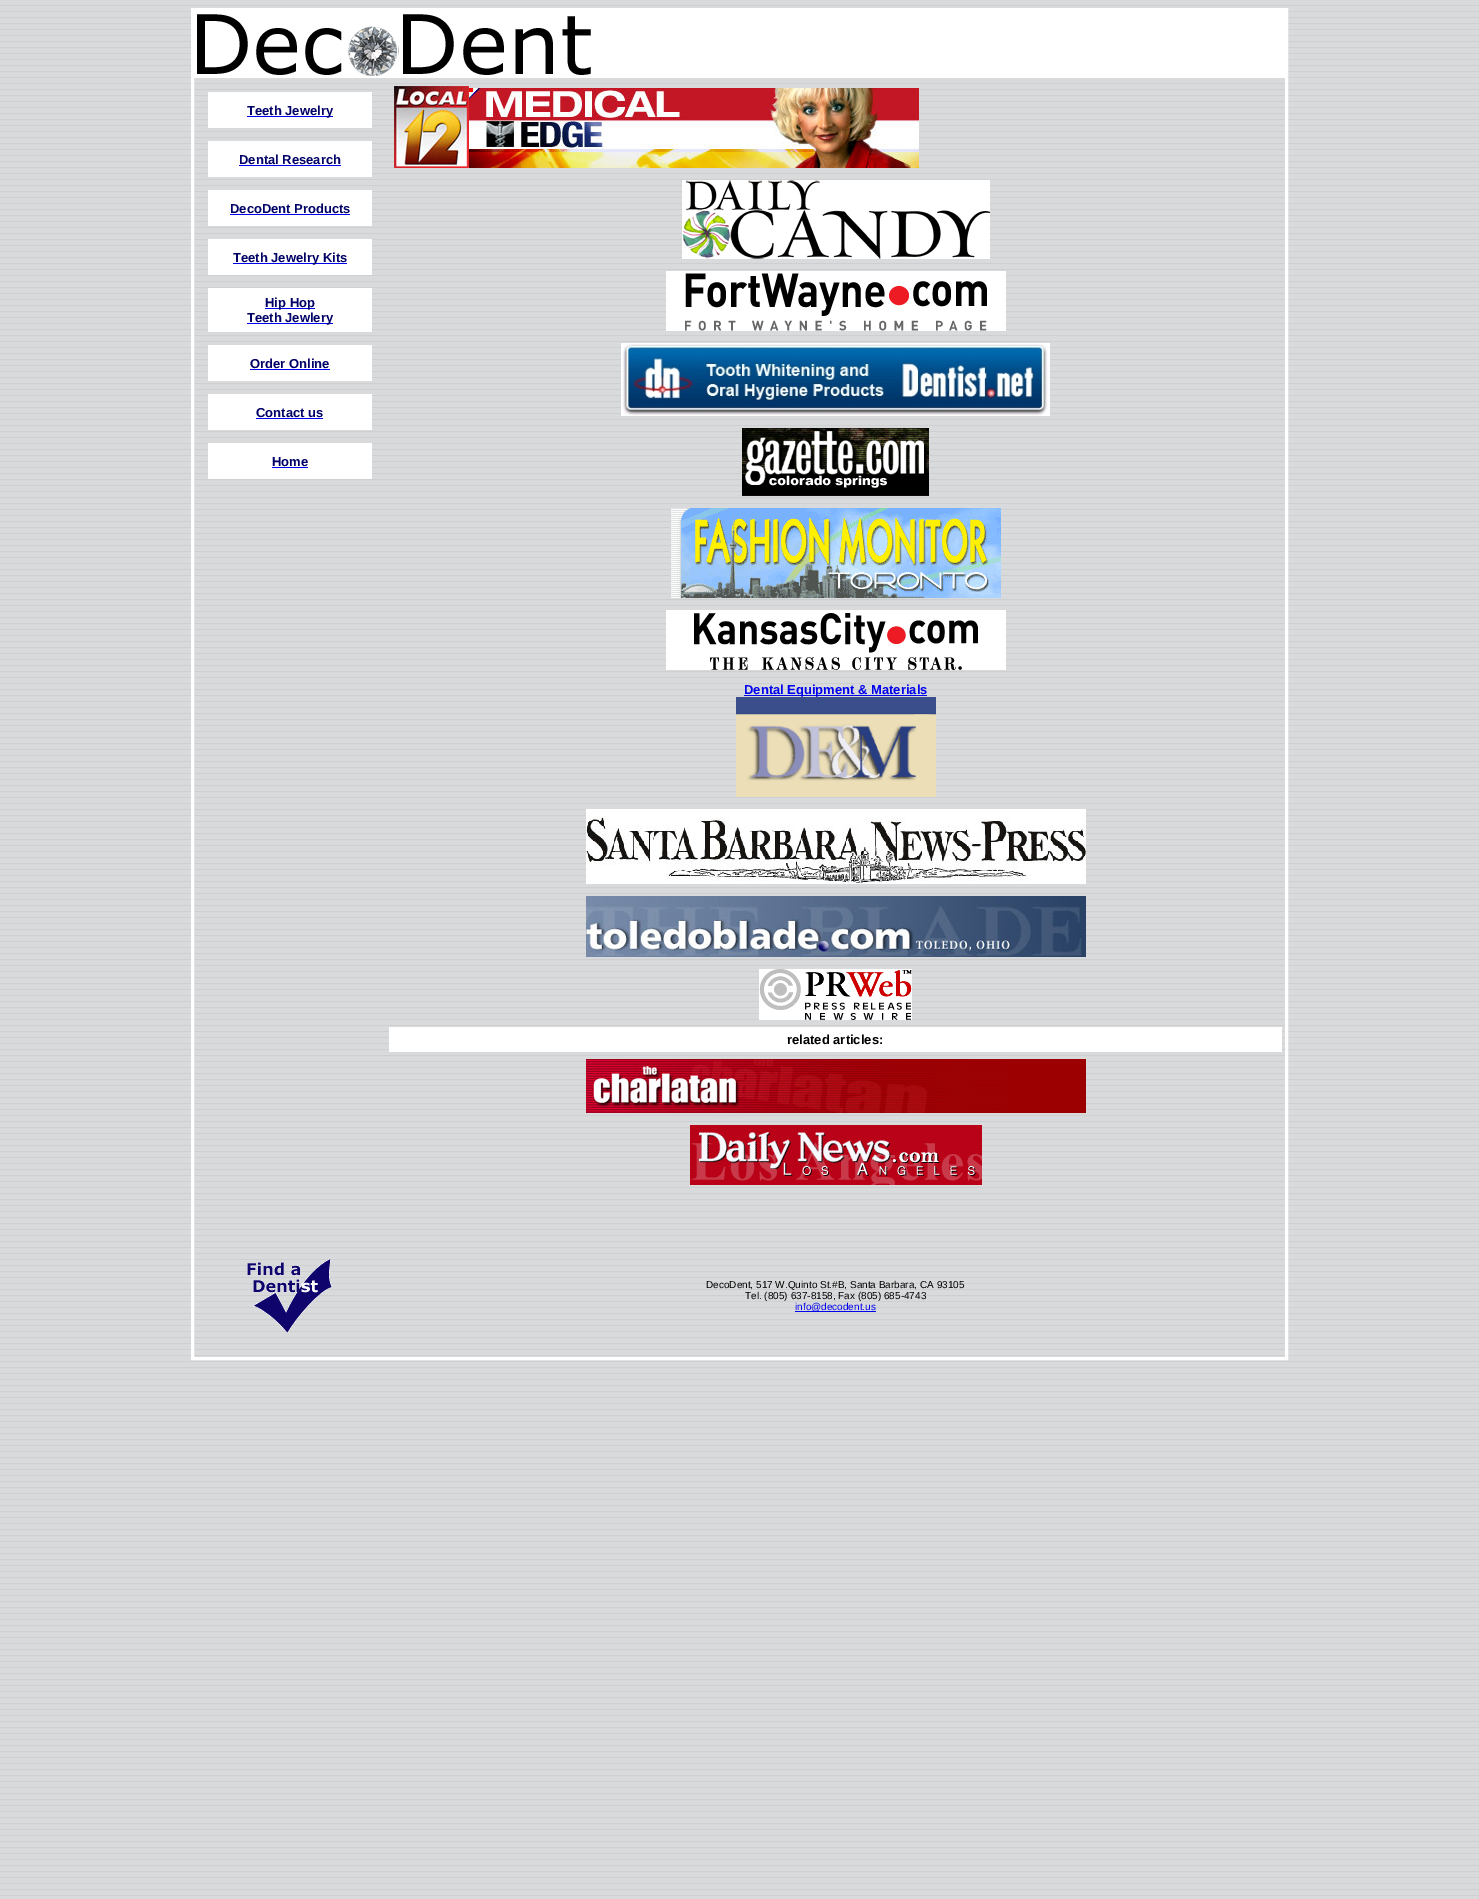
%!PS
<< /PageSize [1479 1899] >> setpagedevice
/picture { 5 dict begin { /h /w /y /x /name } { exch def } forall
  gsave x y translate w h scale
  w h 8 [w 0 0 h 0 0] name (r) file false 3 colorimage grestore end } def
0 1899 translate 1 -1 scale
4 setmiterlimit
1 setgray
0 0 1479 1899 rectfill
(img1.rgb) 0 0 1479 1899 picture
2 setlinewidth
192 9 1095 1350 rectstroke
1 setlinewidth
193.5 10.5 1092 1347 rectstroke
194 11 1091 67 rectfill
(img2.rgb) 197 14 394 62 picture
208 92 164 36 rectfill
0 0 0.933 setrgbcolor
247 116 86 1 rectfill
/LiberationSans-Bold [13 0 0 -13 0 0] selectfont
0 0 0.4 setrgbcolor
247 115 moveto (Teeth Jewelry) show
1 setgray
208 141 164 36 rectfill
0 0 0.4 setrgbcolor
239 164 moveto (Dental Research) show
0 0 0.933 setrgbcolor
239 165 102 1 rectfill
1 setgray
208 190 164 36 rectfill
0 0 0.4 setrgbcolor
230 213 moveto (DecoDent Products) show
0 0 0.933 setrgbcolor
230 214 120 1 rectfill
1 setgray
208 239 164 36 rectfill
0 0 0.933 setrgbcolor
233 263 114 1 rectfill
0 0 0.4 setrgbcolor
233 262 moveto (Teeth Jewelry Kits) show
1 setgray
208 288 164 44 rectfill
0 0 0.933 setrgbcolor
265 308 50 1 rectfill
0 0 0.4 setrgbcolor
265 307 moveto (Hip Hop) show
0 0 0.933 setrgbcolor
247 323 86 1 rectfill
0 0 0.4 setrgbcolor
247 322 moveto (Teeth Jewlery) show
1 setgray
208 345 164 36 rectfill
0 0 0.4 setrgbcolor
250 368 moveto (Order Online) show
0 0 0.933 setrgbcolor
250 369 80 1 rectfill
1 setgray
208 394 164 36 rectfill
0 0 0.4 setrgbcolor
256 417 moveto (Contact us) show
0 0 0.933 setrgbcolor
256 418 67 1 rectfill
1 setgray
208 443 164 36 rectfill
0 0 0.4 setrgbcolor
272 466 moveto (Home) show
0 0 0.933 setrgbcolor
272 467 36 1 rectfill
(img3.rgb) 394 86 75 82 picture
(img4.rgb) 469 88 450 80 picture
(img5.rgb) 682 180 308 79 picture
(img6.rgb) 666 271 340 60 picture
(img7.rgb) 621 343 429 73 picture
(img8.rgb) 742 428 187 68 picture
(img9.rgb) 671 508 330 90 picture
(img10.rgb) 666 610 340 60 picture
744 695 183 1 rectfill
744 694 moveto (Dental Equipment & Materials) show
(img11.rgb) 736 697 200 100 picture
(img12.rgb) 586 809 500 75 picture
(img13.rgb) 586 896 500 61 picture
(img14.rgb) 759 969 153 51 picture
1 setgray
389 1027 893 25 rectfill
0 setgray
787 1044 moveto (related articles:) show
(img15.rgb) 586 1059 500 54 picture
(img16.rgb) 690 1125 292 60 picture
(img17.rgb) 247 1259 85 74 picture
/LiberationSans-Regular [10 0 0 -10 0 0] selectfont
706 1288 moveto (DecoDent, 517 W.Quinto St.#B, Santa Barbara, CA 93105) show
745 1299 moveto (Tel. \(805\) 637-8158, Fax \(805\) 685-4743) show
0 0 0.933 setrgbcolor
795 1311 81 1 rectfill
795 1310 moveto (info@decodent.us) show
showpage
